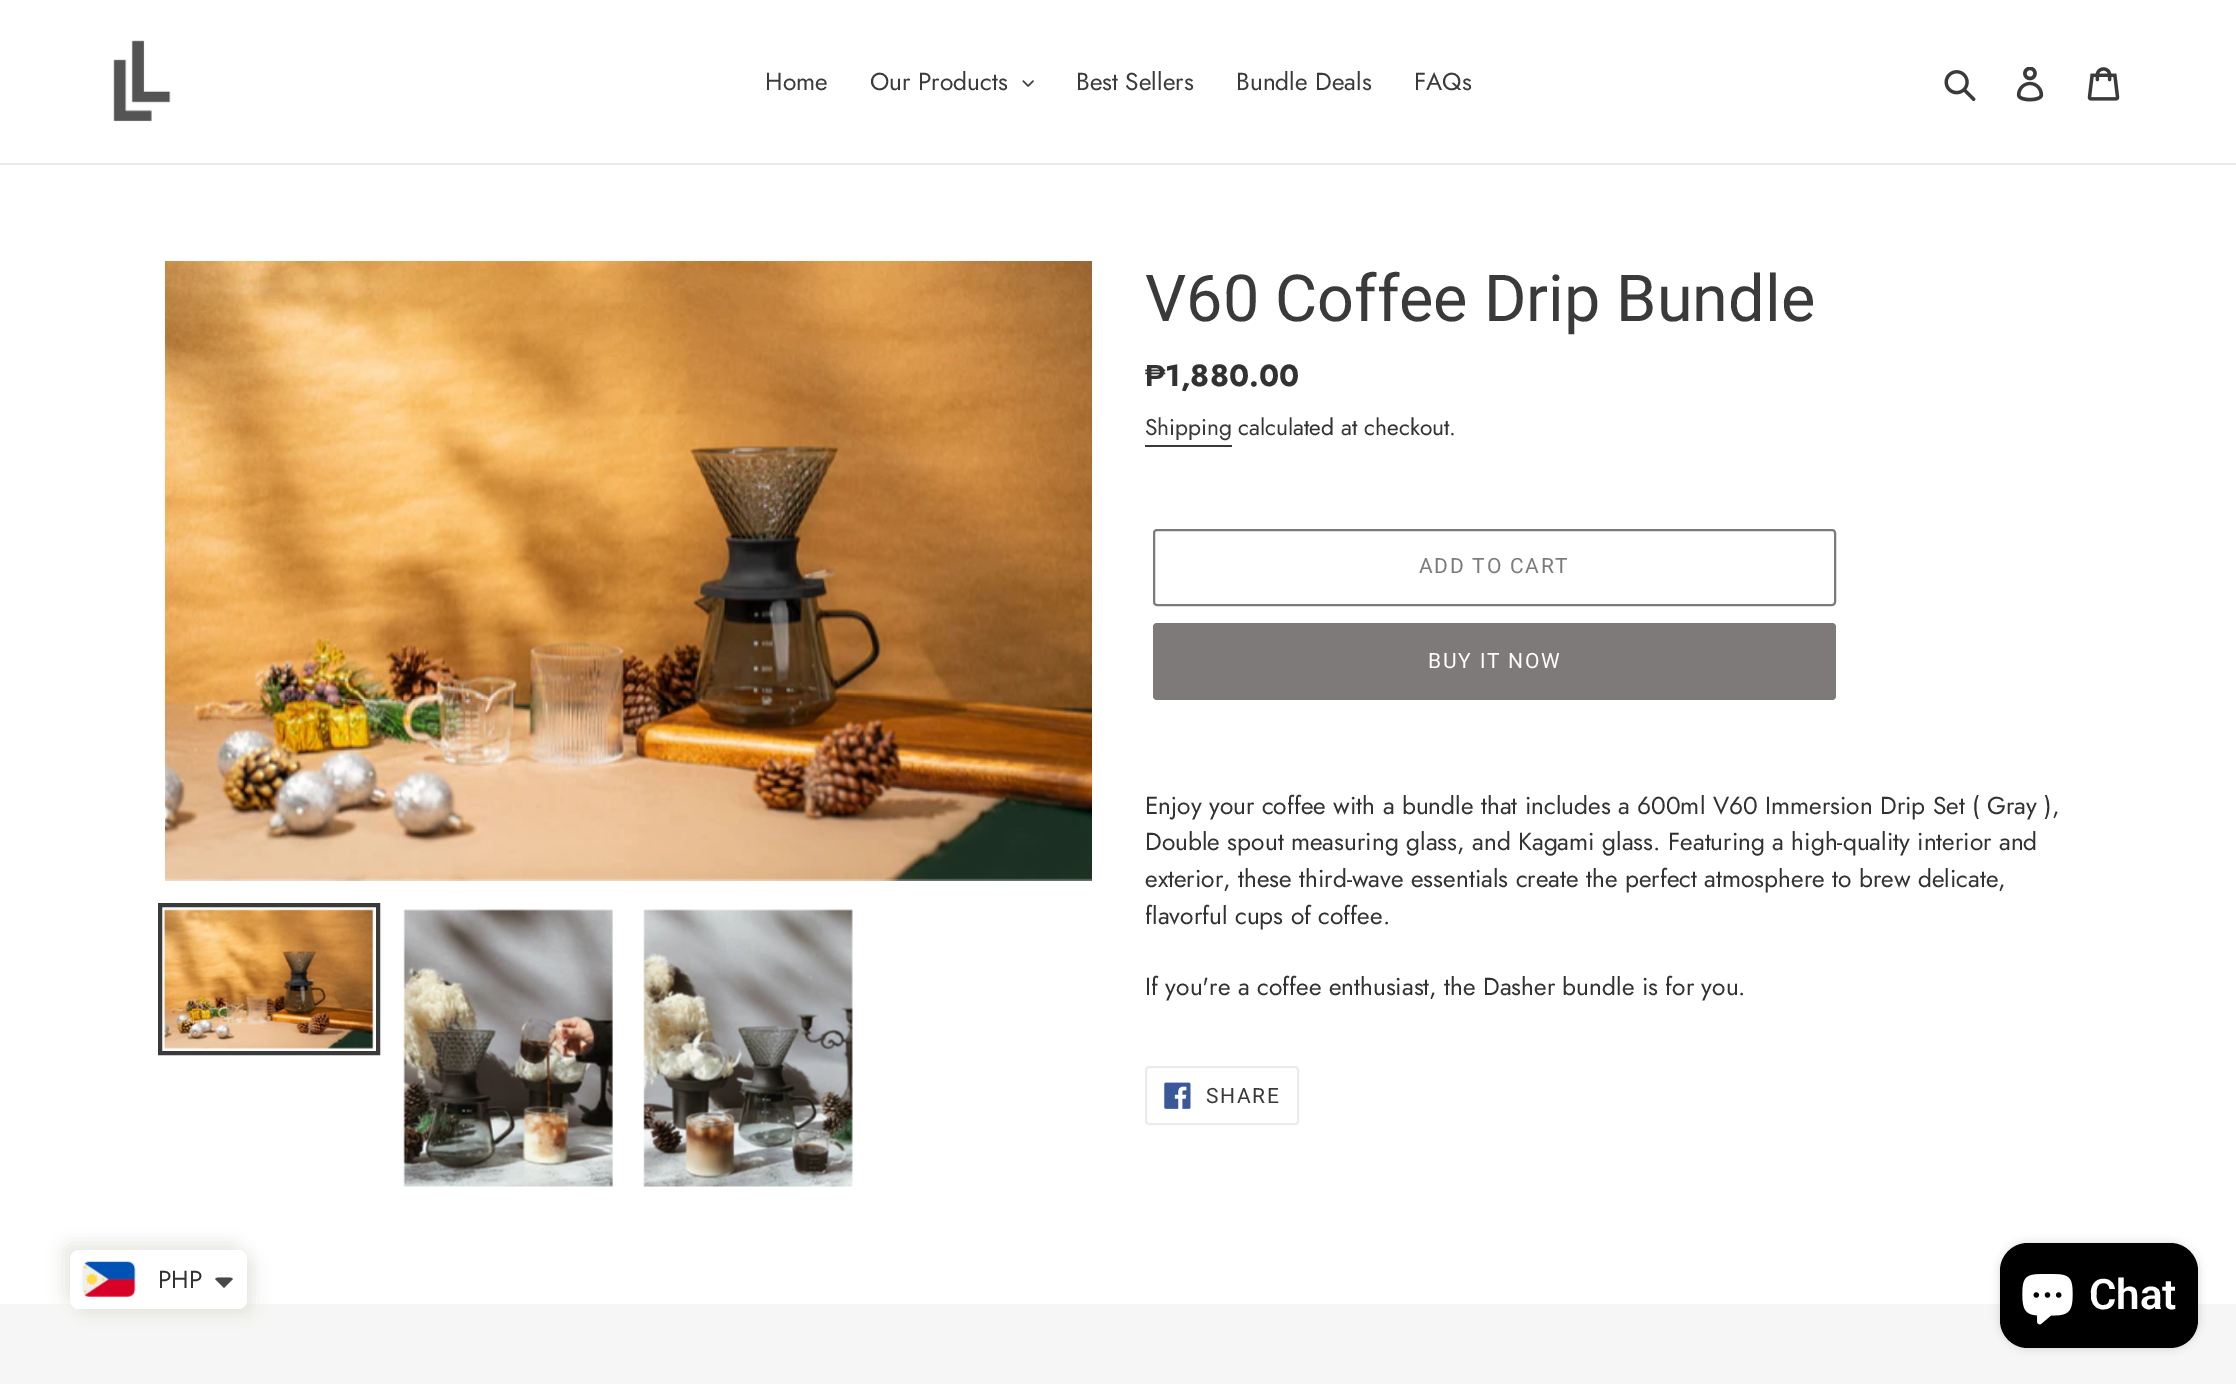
%!PS
<< /PageSize [2236 1384] /PageUsesTransparency true >> setpagedevice
/alpha { dup .setfillconstantalpha .setstrokeconstantalpha } def
/roundrect { 5 dict begin { /r /h /w /y /x } { exch def } forall
  x r add y moveto x w add y 2 copy h add r arct x w add y h add x 1 index r arct
  x y h add x y r arct x y 2 copy exch w add exch r arct closepath end } def
/shadow { 12 dict begin { /a /b /q /h /w /y /x } { exch def } forall gsave /was 0 def
  9 -2 -9 { dup b mul 4 div /e exch def 1 sub .425 mul 2.718 exch exp 1 add a .99 .min exch div /now exch def
    1 1 now sub 1 was sub div sub alpha /was now def
    w h .min e 2 mul add 0 gt { x e sub y e sub w e 2 mul add h e 2 mul add
      q e add b .6 mul add w h .min 2 div e add .min 0 .max roundrect fill } if } for grestore end } def
/picture { 5 dict begin { /h /w /y /x /name } { exch def } forall
  gsave x y translate w h scale
  w h 8 [w 0 0 h 0 0] name (r) file false 3 colorimage grestore end } def
0 .pushpdf14devicefilter
0 1384 translate 1 -1 scale
4 setmiterlimit
1 setgray
0 0 2236 1384 rectfill
0.922 setgray
0 163 2236 2 rectfill
(img1.rgb) 113 40 58 82 picture
/Jost-Regular [24.5 0 0 -24.5 0 0] selectfont
0.227 setgray
765 90 moveto (Home) show
870 90 moveto (Our Products) show
(img2.rgb) 1022 80 12 7 picture
1076 90 moveto (Best Sellers) show
1236 90 moveto (Bundle Deals) show
1414 90 moveto (FAQs) show
(img3.rgb) 1944 70 32 31 picture
(img4.rgb) 2016 67 28 35 picture
(img5.rgb) 2087 67 33 34 picture
(img6.rgb) 165 261 927 620 picture
4 setlinewidth
160 905 218 148 rectstroke
(img7.rgb) 163 909 211 140 picture
(img8.rgb) 403 909 210 278 picture
(img9.rgb) 643 909 210 278 picture
/Roboto-Regular [64.75 0 0 -64.75 0 0] selectfont
1145 321 moveto (V60 Coffee Drip Bundle) show
/LiberationSans-Bold [30.5 0 0 -30.5 0 0] selectfont
0.2 0.196 0.196 setrgbcolor
1145 386 moveto (₱) show
/Jost-Bold [30.5 0 0 -30.5 0 0] selectfont
1165 386 moveto (1,880.00) show
/Jost-Regular [22.75 0 0 -22.75 0 0] selectfont
0.227 setgray
1145 435 moveto (Shipping) show
1145 445 87 2 rectfill
0.2 0.196 0.196 setrgbcolor
1238 435 moveto (calculated at checkout.) show
0.494 0.478 0.478 setrgbcolor
2 setlinewidth
1154 530 681 75 3 roundrect stroke
/Roboto-Regular [21 0 0 -21 0 0] selectfont
1419 573 moveto 1.75 0 (ADD TO CART) ashow
1153 623 683 77 4 roundrect fill
1 setgray
1428 668 moveto 1.75 0 (BUY IT NOW) ashow
/Jost-Regular [24.5 0 0 -24.5 0 0] selectfont
0.2 0.196 0.196 setrgbcolor
1145 814 moveto (Enjoy your coffee with a bundle that includes a 600ml V60 Immersion Drip Set \( Gray \),) show
1145 850 moveto (Double spout measuring glass, and Kagami glass. Featuring a high-quality interior and) show
1145 887 moveto (exterior, these third-wave essentials create the perfect atmosphere to brew delicate,) show
1145 924 moveto (flavorful cups of coffee.) show
1145 995 moveto (If you're a coffee enthusiast, the Dasher bundle is for you.) show
0.922 setgray
1146 1067 152 57 3 roundrect stroke
(img10.rgb) 1164 1082 27 27 picture
/Roboto-Regular [21 0 0 -21 0 0] selectfont
0.227 setgray
1206 1103 moveto 1.75 0 (SHARE) ashow
0.965 setgray
0 1304 2236 80 rectfill
0.91 0.91 0.886 setrgbcolor
63 1243 177 59 9 8 1 shadow
77 1257 177 59 9 8 1 shadow
1 setgray
70 1250 177 59 9 roundrect fill
(img11.rgb) 82 1261 54 36 picture
/Jost-Regular [24.5 0 0 -24.5 0 0] selectfont
0.2 0.196 0.196 setrgbcolor
158 1288 moveto (PHP) show
0.278 0.286 0.259 setrgbcolor
newpath 219 1277.5 moveto 217.5 1277.5 216 1278 215 1279 curveto 224 1288 lineto 233 1279 lineto 232 1278 230.5 1277.5 229 1277.5 curveto closepath fill
0 setgray
2000 1243 198 105 28 4.5 0.15 shadow
2000 1243 198 105 28 roundrect fill
(img12.rgb) 2022 1274 51 51 picture
/Roboto-SemiBold [42 0 0 -42 0 0] selectfont
1 setgray
2089 1309 moveto (Chat) show
.poppdf14devicefilter showpage
